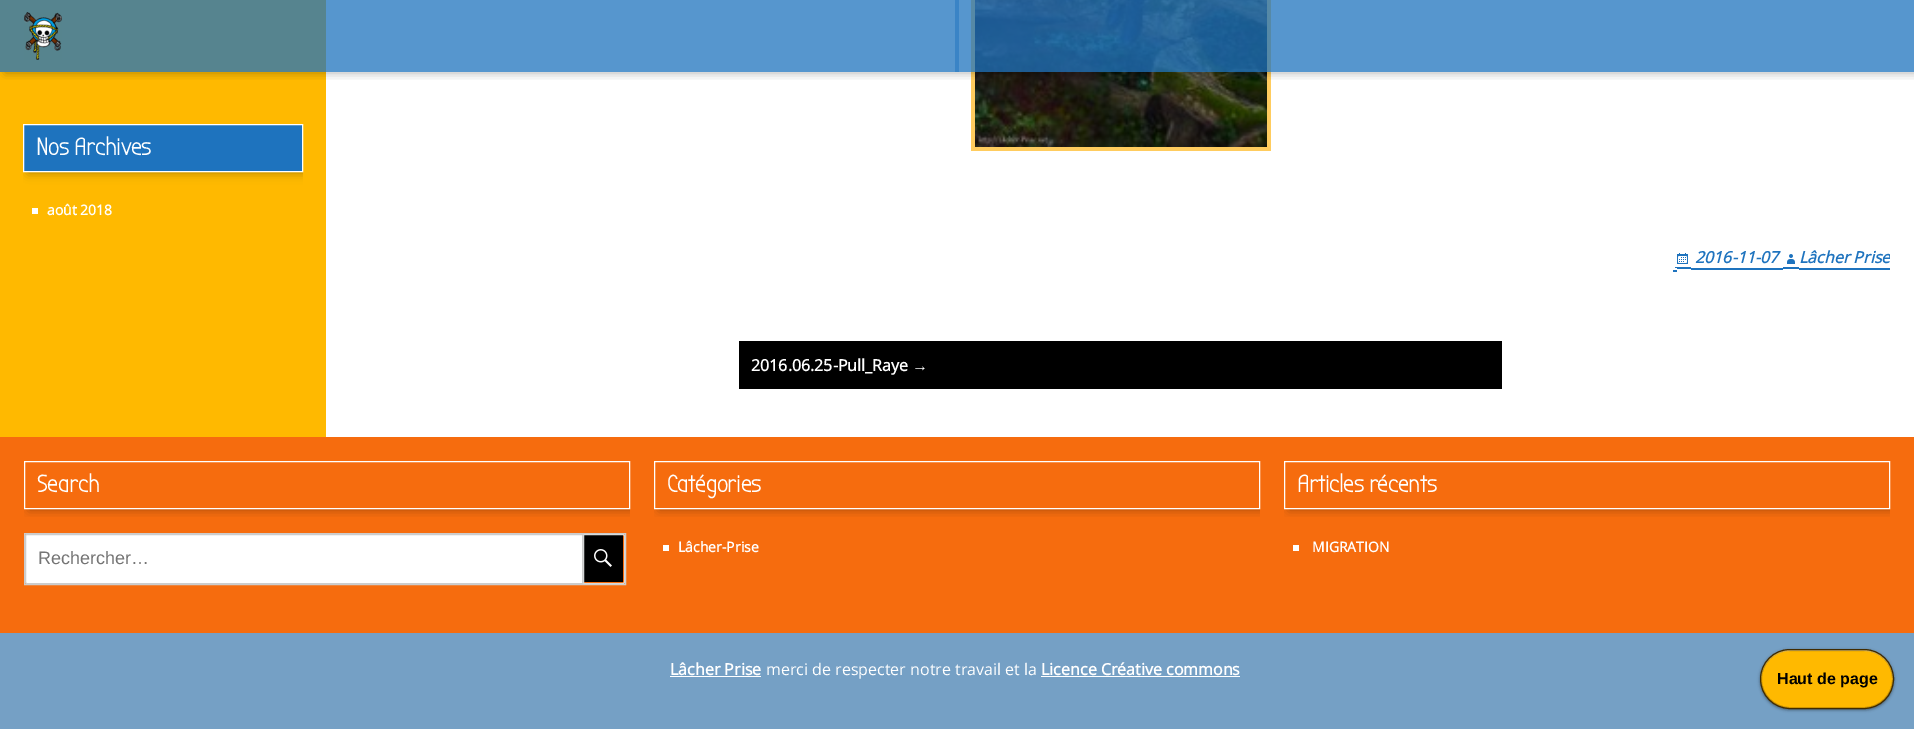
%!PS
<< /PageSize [1914 729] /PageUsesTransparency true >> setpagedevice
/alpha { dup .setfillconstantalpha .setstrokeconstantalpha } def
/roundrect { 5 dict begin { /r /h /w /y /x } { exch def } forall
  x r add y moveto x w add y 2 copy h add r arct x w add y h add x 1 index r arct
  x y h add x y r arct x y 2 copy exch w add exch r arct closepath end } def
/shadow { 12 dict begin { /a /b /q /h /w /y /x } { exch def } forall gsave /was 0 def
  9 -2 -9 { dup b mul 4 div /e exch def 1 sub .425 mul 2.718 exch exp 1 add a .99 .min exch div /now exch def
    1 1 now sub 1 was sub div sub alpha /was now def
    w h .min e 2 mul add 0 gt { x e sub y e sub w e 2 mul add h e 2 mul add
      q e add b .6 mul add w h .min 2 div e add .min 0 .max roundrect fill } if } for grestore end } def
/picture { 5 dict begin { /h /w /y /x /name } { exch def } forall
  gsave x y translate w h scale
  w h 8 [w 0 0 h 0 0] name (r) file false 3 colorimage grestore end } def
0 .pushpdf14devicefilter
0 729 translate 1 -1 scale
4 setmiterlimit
1 setgray
0 0 1914 729 rectfill
1 0.725 0 setrgbcolor
0 0 326 437 rectfill
1 0.8 0.369 setrgbcolor
971 0 300 151 rectfill
(img2.rgb) 975 0 292 147 picture
gsave
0 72 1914 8 rectclip
0 setgray
5 1 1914 72 0 5 0.3 shadow
grestore
0.5 alpha
0.118 0.451 0.745 setrgbcolor
0 0 1914 72 rectfill
955 0 959 72 rectfill
0 0 959 72 rectfill
1 alpha
(img1.rgb) 24 12 38 48 picture
gsave
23 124 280 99 rectclip
0 setgray
28 125 280 48 0 5 0.3 shadow
grestore
newpath 23.5 124.5 moveto 302.5 124.5 lineto 302.5 171.5 lineto 23.5 171.5 lineto closepath gsave fill grestore
1 setgray
stroke
/BubblerOne-Bold [24 0 0 -24 0 0] selectfont
36 155 moveto (Nos Archives) show
32 208 6 6 rectfill
/OpenSans-Bold [14 0 0 -14 0 0] selectfont
47 215 moveto (août 2018) show
0.118 0.451 0.745 setrgbcolor
1675 267 16 2 rectfill
1691 268 92 2 rectfill
1783 267 16 2 rectfill
1799 268 91 2 rectfill
1673 270 4 2 rectfill
(img3.rgb) 1677 253 11 11 picture
/OpenSans-BoldItalic [16 0 0 -16 0 0] selectfont
1695 263 moveto (2016-11-07) show
(img4.rgb) 1787 254 8 10 picture
gsave
351 0 1539 293 rectclip
1799 263 moveto (Lâcher Prise) show
grestore
1 setgray
1673 268 4 1 rectfill
0 setgray
739 341 763 48 rectfill
/OpenSans-Bold [16 0 0 -16 0 0] selectfont
1 setgray
751 371 moveto (2016.06.25-Pull_Raye) show
/LiberationSans-Bold [16 0 0 -16 0 0] selectfont
912 371 moveto (→) show
0.965 0.424 0.055 setrgbcolor
0 437 1914 196 rectfill
gsave
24 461 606 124 rectclip
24 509 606 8 rectclip
0 setgray
29 462 606 48 0 5 0.3 shadow
grestore
1 setgray
24.5 461.5 605 47 rectstroke
/BubblerOne-Bold [24 0 0 -24 0 0] selectfont
37 492 moveto (Search) show
0.8 setgray
24.5 533.5 601 51 rectstroke
0 setgray
584 535 39 47 rectfill
(img5.rgb) 594 549 18 18 picture
0.843 0.855 0.855 setrgbcolor
newpath 583.5 534.5 moveto 623 534.5 lineto 624 534.5 624.5 535 624.5 536 curveto 624.5 582 lineto 624.5 583 624 583.5 623 583.5 curveto 583.5 583.5 lineto closepath stroke
1 setgray
newpath 27 534.5 moveto 582.5 534.5 lineto 582.5 583.5 lineto 27 583.5 lineto 26 583.5 25.5 583 25.5 582 curveto 25.5 536 lineto 25.5 535 26 534.5 27 534.5 curveto closepath gsave fill grestore
0.8 setgray
stroke
/LiberationSans-Regular [18 0 0 -18 0 0] selectfont
0.459 setgray
38 564 moveto (Rechercher…) show
gsave
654 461 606 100 rectclip
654 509 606 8 rectclip
0 setgray
659 462 606 48 0 5 0.3 shadow
grestore
1 setgray
654.5 461.5 605 47 rectstroke
/BubblerOne-Bold [24 0 0 -24 0 0] selectfont
667 492 moveto (Catégories) show
663 545 6 6 rectfill
/OpenSans-Bold [14 0 0 -14 0 0] selectfont
678 552 moveto (Lâcher-Prise) show
gsave
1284 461 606 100 rectclip
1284 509 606 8 rectclip
0 setgray
1289 462 606 48 0 5 0.3 shadow
grestore
1284.5 461.5 605 47 rectstroke
/BubblerOne-Bold [24 0 0 -24 0 0] selectfont
1297 492 moveto (Articles récents) show
1293 545 6 6 rectfill
/OpenSans-Bold [14 0 0 -14 0 0] selectfont
1312 552 moveto (MIGRATION) show
0.459 0.627 0.773 setrgbcolor
0 633 1914 96 rectfill
/OpenSans-Bold [16 0 0 -16 0 0] selectfont
1 setgray
670 675 moveto (Lâcher Prise) show
670 676 91 1 rectfill
/OpenSans-Regular [16 0 0 -16 0 0] selectfont
766 675 moveto (merci de respecter notre travail et la) show
/OpenSans-Bold [16 0 0 -16 0 0] selectfont
1041 675 moveto (Licence Créative commons) show
1041 676 199 1 rectfill
0 setgray
1760 650 134 60 30 1.5 0.4 shadow
1 0.725 0 setrgbcolor
1761 650 132 58 29 roundrect fill
0.4 alpha
1 setgray
newpath 1790 651 moveto 1864 651 lineto 1880 651 1893 664 1893 680 curveto 1893 679 lineto 1893 663 1880 650 1864 650 curveto 1790 650 lineto 1774 650 1761 663 1761 679 curveto 1761 680 lineto 1761 664 1774 651 1790 651 curveto closepath fill
0.2 alpha
0 setgray
1761.5 650.5 131 57 28.5 roundrect stroke
1 alpha
0.251 0.169 0 setrgbcolor
1760.5 649.5 133 59 29.5 roundrect stroke
/LiberationSans-Bold [16 0 0 -16 0 0] selectfont
0 setgray
1777 684 moveto (Haut de page) show
.poppdf14devicefilter showpage
